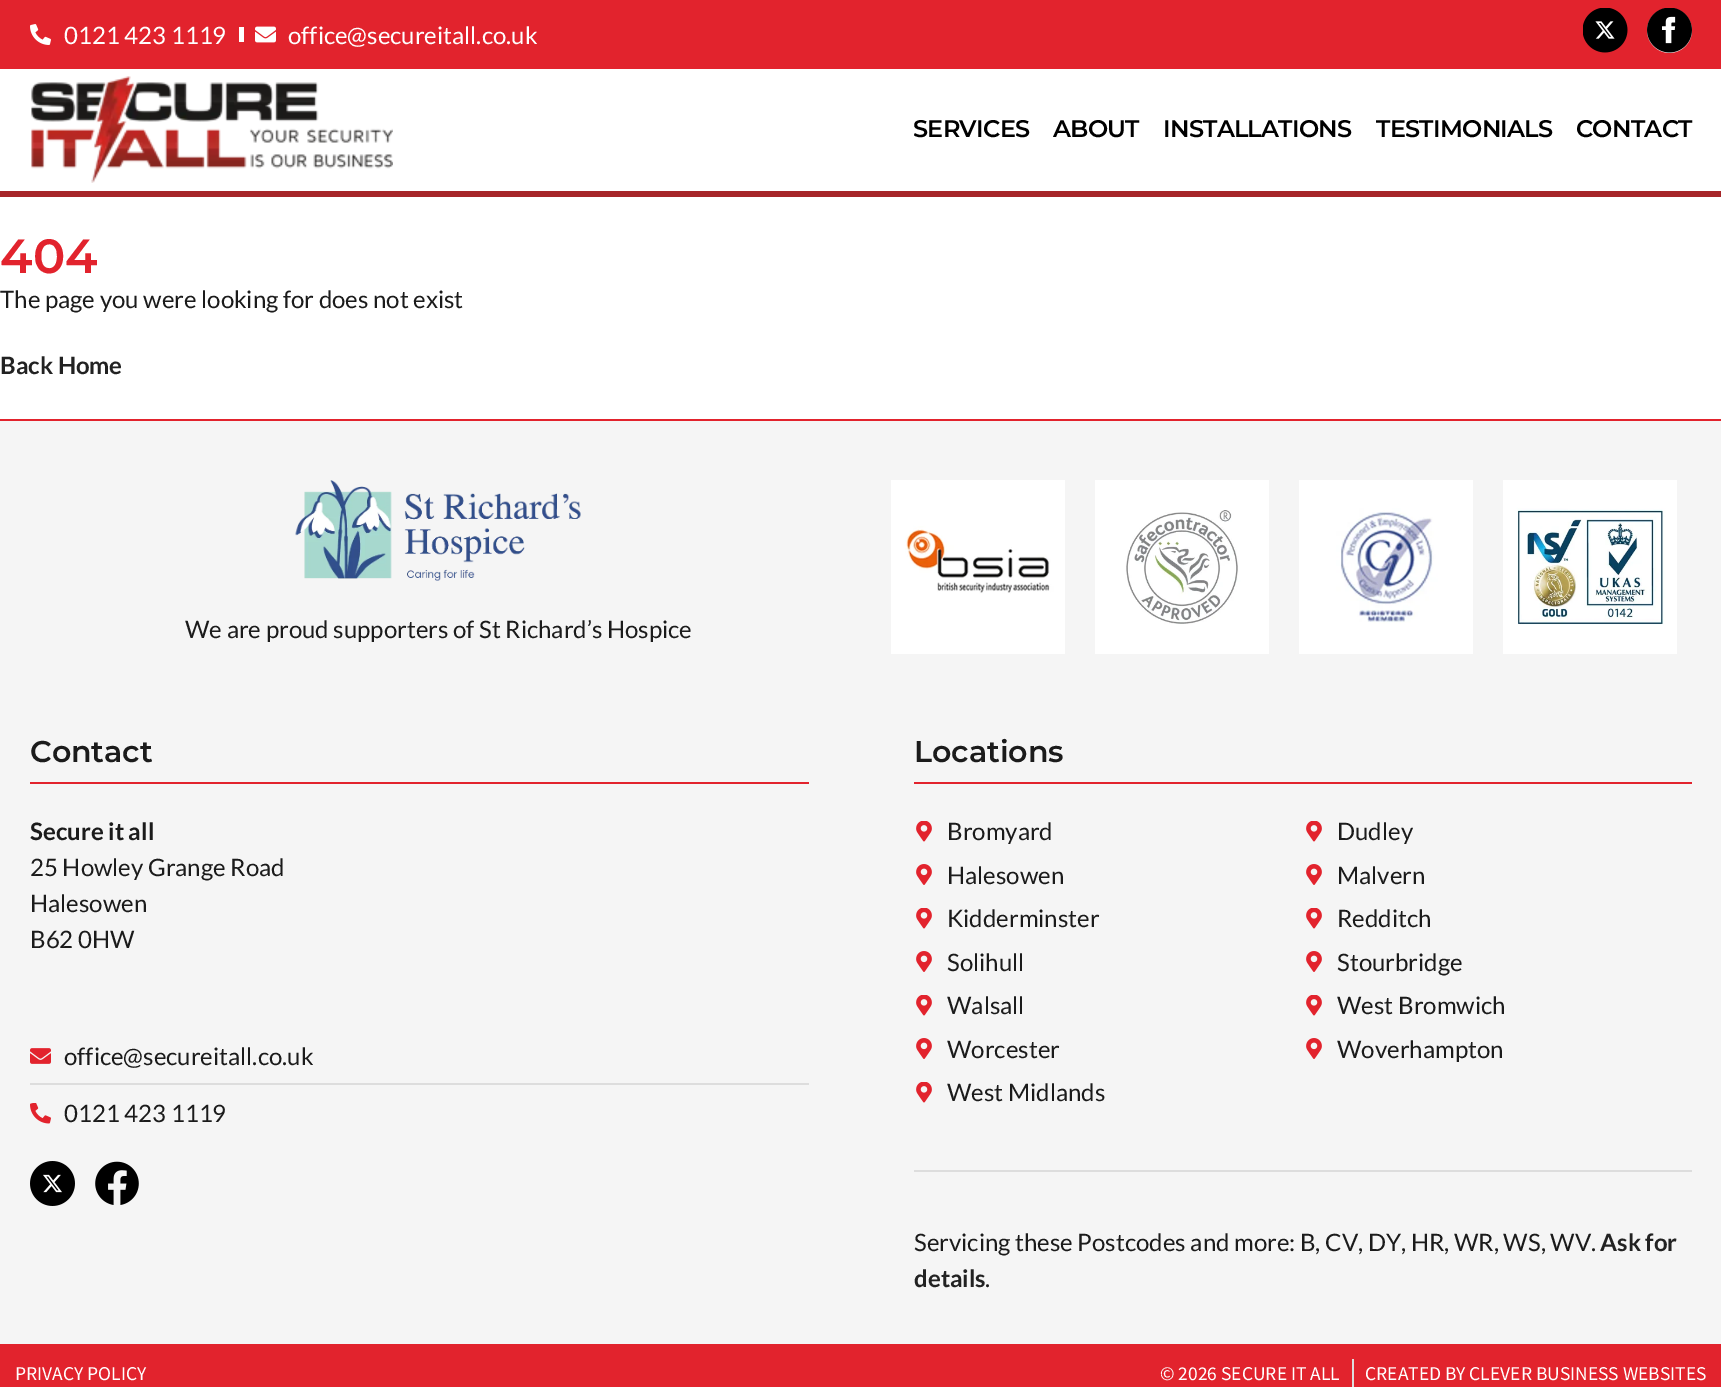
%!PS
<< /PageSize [1721 1387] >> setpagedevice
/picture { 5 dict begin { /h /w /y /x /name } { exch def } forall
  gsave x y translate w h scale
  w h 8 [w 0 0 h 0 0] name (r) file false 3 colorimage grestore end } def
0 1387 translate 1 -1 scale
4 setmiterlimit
1 setgray
0 0 1721 1387 rectfill
0.886 0.137 0.176 setrgbcolor
0 0 1721 69 rectfill
(img1.rgb) 30 24 21 21 picture
/Lato-Regular [24 0 0 -24 0 0] selectfont
1 setgray
64 44 moveto (0121 423 1119) show
239 27 5 15 rectfill
(img2.rgb) 255 26 21 17 picture
288 44 moveto (office@secureitall.co.uk) show
(img3.rgb) 1583 8 45 45 picture
newpath 1669.5 30.5 22.5 0 360 arc closepath fill
(img4.rgb) 1647 8 45 45 picture
0.651 0.149 0.161 setrgbcolor
0 191 1721 6 rectfill
(img5.rgb) 31 76 362 107 picture
/Montserrat-SemiBold [24 0 0 -24 0 0] selectfont
0 setgray
913 137 moveto -0.75 0 (SERVICES) ashow
1053 137 moveto -0.75 0 (ABOUT) ashow
1163 137 moveto -0.75 0 (INSTALLATIONS) ashow
1376 137 moveto -0.75 0 (TESTIMONIALS) ashow
1576 137 moveto -0.75 0 (CONTACT) ashow
/Montserrat-SemiBold [48 0 0 -48 0 0] selectfont
0.886 0.137 0.176 setrgbcolor
0 273 moveto (404) show
/Lato-Regular [24 0 0 -24 0 0] selectfont
0.106 setgray
0 308 moveto (The page you were looking for does not exist) show
/Lato-Bold [24 0 0 -24 0 0] selectfont
0.133 setgray
0 374 moveto (Back Home) show
0.961 setgray
0 421 1721 923 rectfill
0.886 0.137 0.176 setrgbcolor
0 419 1721 2 rectfill
(img6.rgb) 295 480 286 101 picture
/Lato-Regular [24 0 0 -24 0 0] selectfont
0.106 setgray
185 638 moveto (We are proud supporters of St Richard’s Hospice) show
(img7.rgb) 891 480 174 174 picture
(img8.rgb) 1095 480 174 174 picture
(img9.rgb) 1299 480 174 174 picture
(img10.rgb) 1503 480 174 174 picture
0.886 0.137 0.176 setrgbcolor
30 782 779 2 rectfill
/Montserrat-SemiBold [30 0 0 -30 0 0] selectfont
0.106 setgray
30 762 moveto (Contact) show
/Lato-Bold [24 0 0 -24 0 0] selectfont
30 840 moveto (Secure it all) show
/Lato-Regular [24 0 0 -24 0 0] selectfont
30 876 moveto (25 Howley Grange Road) show
30 912 moveto (Halesowen) show
30 948 moveto (B62 0HW) show
(img11.rgb) 30 1048 21 16 picture
64 1065 moveto (office@secureitall.co.uk) show
0.867 setgray
30 1083 779 2 rectfill
(img12.rgb) 30 1103 21 21 picture
0.106 setgray
64 1122 moveto (0121 423 1119) show
(img13.rgb) 30 1161 45 45 picture
(img14.rgb) 95 1161 44 44 picture
0.886 0.137 0.176 setrgbcolor
914 782 778 2 rectfill
/Montserrat-SemiBold [30 0 0 -30 0 0] selectfont
0.106 setgray
914 762 moveto (Locations) show
(img15.rgb) 916 821 16 21 picture
/Lato-Regular [24 0 0 -24 0 0] selectfont
947 840 moveto (Bromyard) show
(img15.rgb) 1306 821 16 21 picture
1337 840 moveto (Dudley) show
(img16.rgb) 916 864 16 21 picture
947 884 moveto (Halesowen) show
(img16.rgb) 1306 864 16 21 picture
1337 884 moveto (Malvern) show
(img15.rgb) 916 908 16 21 picture
947 927 moveto (Kidderminster) show
(img15.rgb) 1306 908 16 21 picture
1337 927 moveto (Redditch) show
(img16.rgb) 916 951 16 21 picture
947 971 moveto (Solihull) show
(img16.rgb) 1306 951 16 21 picture
1337 971 moveto (Stourbridge) show
(img15.rgb) 916 995 16 21 picture
947 1014 moveto (Walsall) show
(img15.rgb) 1306 995 16 21 picture
1337 1014 moveto (West Bromwich) show
(img16.rgb) 916 1038 16 21 picture
947 1058 moveto (Worcester) show
(img16.rgb) 1306 1038 16 21 picture
1337 1058 moveto (Woverhampton) show
(img15.rgb) 916 1082 16 21 picture
947 1101 moveto (West Midlands) show
0.867 setgray
914 1170 778 2 rectfill
0.106 setgray
914 1251 moveto (Servicing these Postcodes and more: B, CV, DY, HR, WR, WS, WV.) show
/Lato-Bold [24 0 0 -24 0 0] selectfont
0.133 setgray
1600 1251 moveto (Ask for) show
914 1287 moveto (details) show
/Lato-Regular [24 0 0 -24 0 0] selectfont
0.106 setgray
985 1287 moveto (.) show
0.886 0.137 0.176 setrgbcolor
0 1344 1721 43 rectfill
/SourceSansPro-Regular [19.5 0 0 -19.5 0 0] selectfont
1 setgray
15 1380 moveto (PRIVACY POLICY) show
1160 1380 moveto (© 2026 SECURE IT ALL) show
0.867 setgray
1352 1359 2 28 rectfill
1 setgray
1365 1380 moveto (CREATED BY CLEVER BUSINESS WEBSITES) show
showpage
